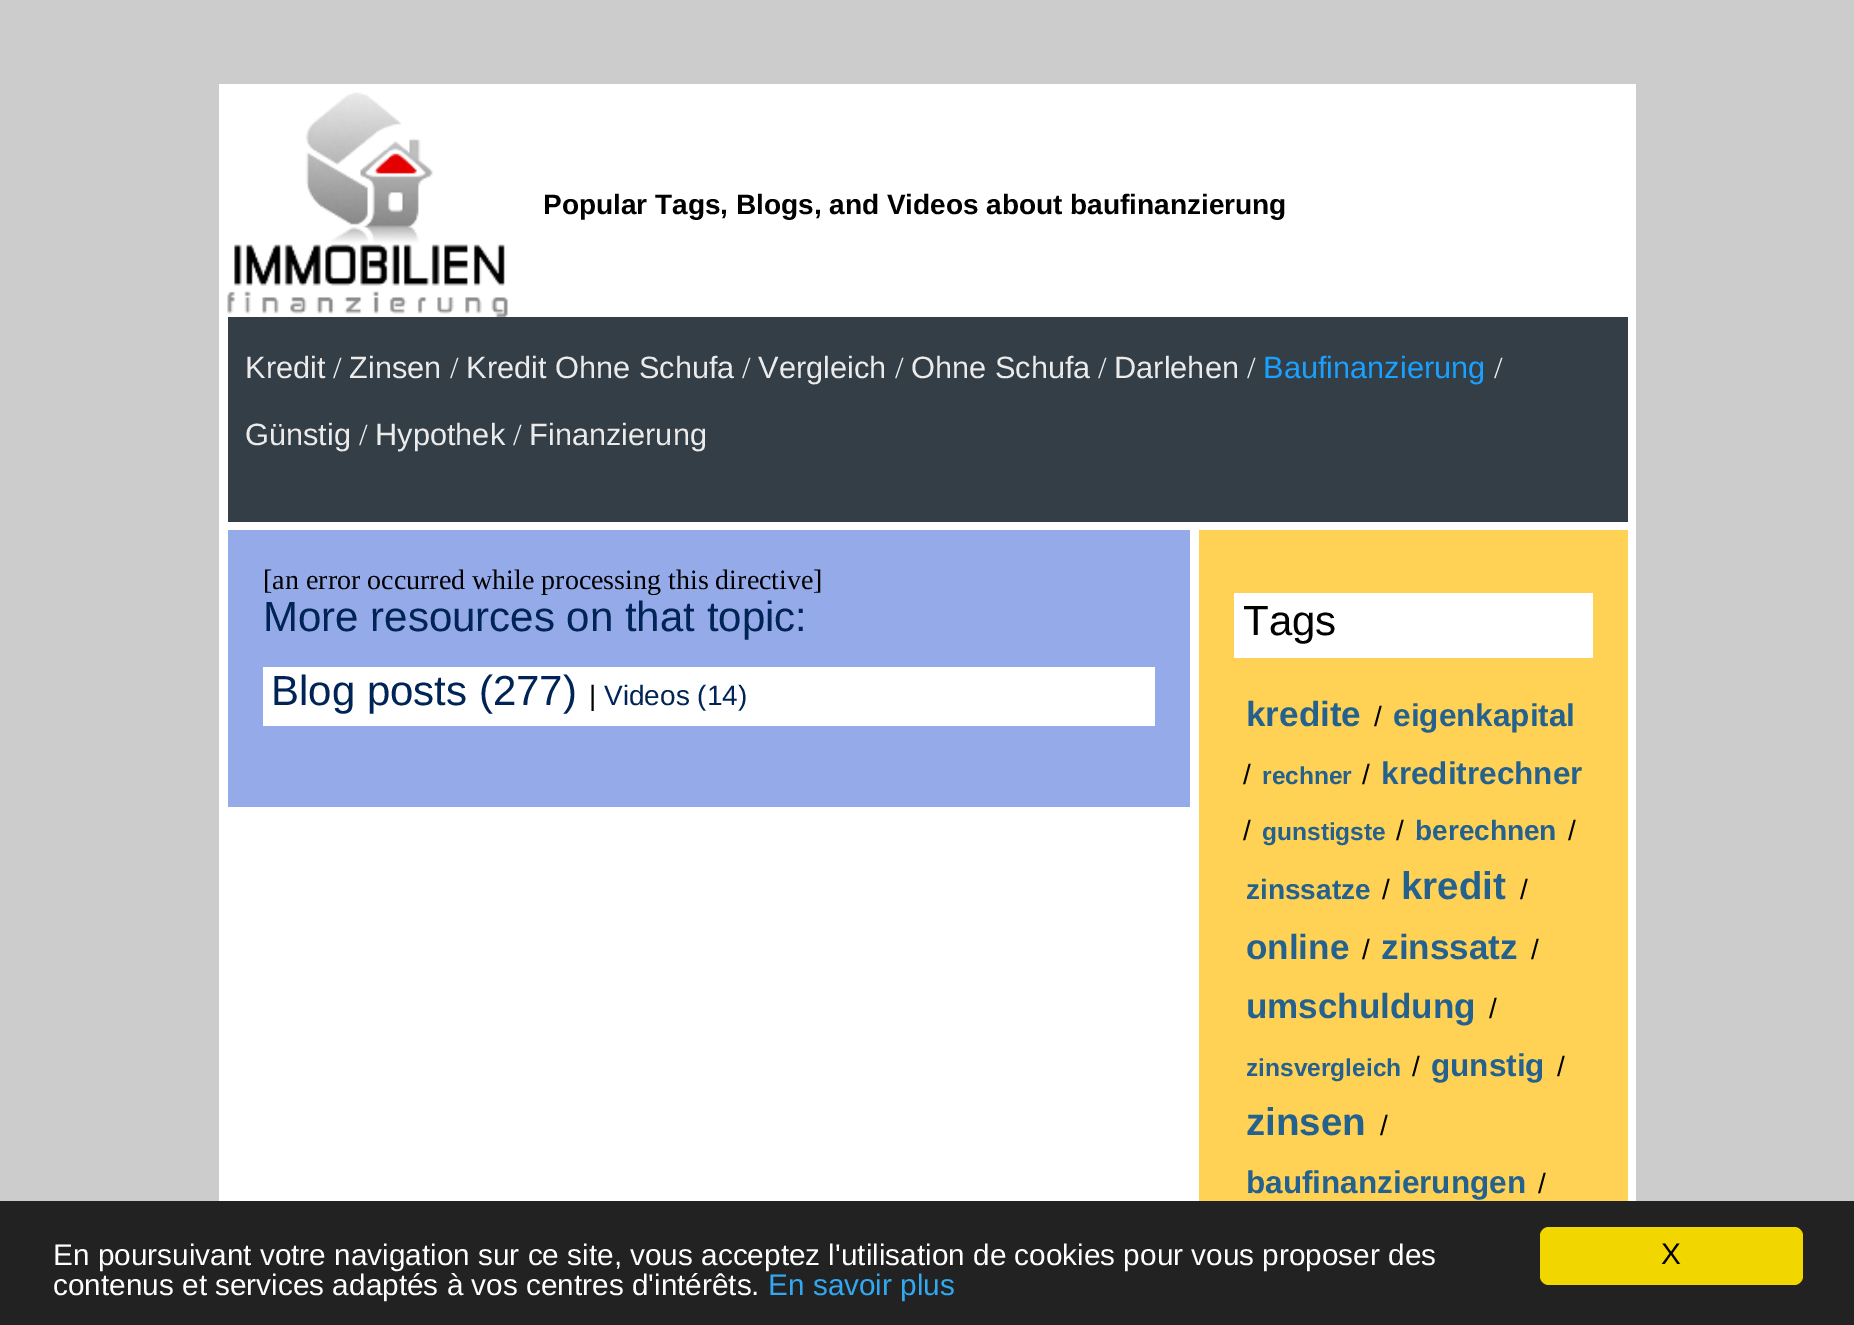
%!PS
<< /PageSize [1854 1325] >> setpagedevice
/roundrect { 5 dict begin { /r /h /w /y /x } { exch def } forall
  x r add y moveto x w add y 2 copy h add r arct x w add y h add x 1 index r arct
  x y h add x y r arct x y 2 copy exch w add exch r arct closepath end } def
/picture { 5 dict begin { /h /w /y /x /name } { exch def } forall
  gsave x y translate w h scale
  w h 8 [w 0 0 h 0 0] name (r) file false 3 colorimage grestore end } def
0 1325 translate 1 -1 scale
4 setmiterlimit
0.8 setgray
0 0 1854 1325 rectfill
1 setgray
219 84 1417 1117 rectfill
(img1.rgb) 227 92 281 225 picture
/LiberationSans-Bold [28 0 0 -28 0 0] selectfont
0 setgray
543 214 moveto (Popular Tags, Blogs, and Videos about baufinanzierung) show
0.2 0.243 0.275 setrgbcolor
228 317 1400 205 rectfill
/LiberationSans-Regular [30.75 0 0 -30.75 0 0] selectfont
0.922 setgray
245 378 moveto (Kredit) show
/LiberationSerif-Regular [30.75 0 0 -30.75 0 0] selectfont
333 378 moveto (/) show
/LiberationSans-Regular [30.75 0 0 -30.75 0 0] selectfont
349 378 moveto (Zinsen) show
/LiberationSerif-Regular [30.75 0 0 -30.75 0 0] selectfont
450 378 moveto (/) show
/LiberationSans-Regular [30.75 0 0 -30.75 0 0] selectfont
466 378 moveto (Kredit Ohne Schufa) show
/LiberationSerif-Regular [30.75 0 0 -30.75 0 0] selectfont
742 378 moveto (/) show
/LiberationSans-Regular [30.75 0 0 -30.75 0 0] selectfont
758 378 moveto (Vergleich) show
/LiberationSerif-Regular [30.75 0 0 -30.75 0 0] selectfont
895 378 moveto (/) show
/LiberationSans-Regular [30.75 0 0 -30.75 0 0] selectfont
911 378 moveto (Ohne Schufa) show
/LiberationSerif-Regular [30.75 0 0 -30.75 0 0] selectfont
1098 378 moveto (/) show
/LiberationSans-Regular [30.75 0 0 -30.75 0 0] selectfont
1114 378 moveto (Darlehen) show
/LiberationSerif-Regular [30.75 0 0 -30.75 0 0] selectfont
1247 378 moveto (/) show
/LiberationSans-Regular [30.75 0 0 -30.75 0 0] selectfont
0.102 0.631 1 setrgbcolor
1263 378 moveto (Baufinanzierung) show
/LiberationSerif-Regular [30.75 0 0 -30.75 0 0] selectfont
0.922 setgray
1494 378 moveto (/) show
/LiberationSans-Regular [30.75 0 0 -30.75 0 0] selectfont
245 445 moveto (Günstig) show
/LiberationSerif-Regular [30.75 0 0 -30.75 0 0] selectfont
359 445 moveto (/) show
/LiberationSans-Regular [30.75 0 0 -30.75 0 0] selectfont
375 445 moveto (Hypothek) show
/LiberationSerif-Regular [30.75 0 0 -30.75 0 0] selectfont
513 445 moveto (/) show
/LiberationSans-Regular [30.75 0 0 -30.75 0 0] selectfont
529 445 moveto (Finanzierung) show
0.584 0.667 0.914 setrgbcolor
228 530 962 277 rectfill
/LiberationSerif-Regular [28 0 0 -28 0 0] selectfont
0 setgray
263 589 moveto ([an error occurred while processing this directive]) show
/LiberationSans-Regular [42 0 0 -42 0 0] selectfont
0 0.141 0.333 setrgbcolor
263 631 moveto (More resources on that topic:) show
1 setgray
263 667 892 59 rectfill
0 0.141 0.333 setrgbcolor
271 705 moveto (Blog posts \(277\)) show
/LiberationSans-Regular [28 0 0 -28 0 0] selectfont
0 setgray
589 705 moveto (|) show
0 0.141 0.333 setrgbcolor
604 705 moveto (Videos \(14\)) show
1 0.82 0.329 setrgbcolor
1199 530 429 671 rectfill
1 setgray
1234 593 359 65 rectfill
/LiberationSans-Regular [42 0 0 -42 0 0] selectfont
0 setgray
1243 635 moveto (Tags) show
/LiberationSans-Bold [35 0 0 -35 0 0] selectfont
0.141 0.38 0.557 setrgbcolor
1246 726 moveto (kredite) show
/LiberationSans-Regular [28 0 0 -28 0 0] selectfont
0 setgray
1374 726 moveto (/) show
/LiberationSans-Bold [31.5 0 0 -31.5 0 0] selectfont
0.141 0.38 0.557 setrgbcolor
1393 726 moveto (eigenkapital) show
/LiberationSans-Regular [28 0 0 -28 0 0] selectfont
0 setgray
1243 784 moveto (/) show
/LiberationSans-Bold [24.5 0 0 -24.5 0 0] selectfont
0.141 0.38 0.557 setrgbcolor
1262 784 moveto (rechner) show
/LiberationSans-Regular [28 0 0 -28 0 0] selectfont
0 setgray
1362 784 moveto (/) show
/LiberationSans-Bold [31.5 0 0 -31.5 0 0] selectfont
0.141 0.38 0.557 setrgbcolor
1381 784 moveto (kreditrechner) show
/LiberationSans-Regular [28 0 0 -28 0 0] selectfont
0 setgray
1243 840 moveto (/) show
/LiberationSans-Bold [24.5 0 0 -24.5 0 0] selectfont
0.141 0.38 0.557 setrgbcolor
1262 840 moveto (gunstigste) show
/LiberationSans-Regular [28 0 0 -28 0 0] selectfont
0 setgray
1396 840 moveto (/) show
/LiberationSans-Bold [28 0 0 -28 0 0] selectfont
0.141 0.38 0.557 setrgbcolor
1415 840 moveto (berechnen) show
/LiberationSans-Regular [28 0 0 -28 0 0] selectfont
0 setgray
1568 840 moveto (/) show
/LiberationSans-Bold [28 0 0 -28 0 0] selectfont
0.141 0.38 0.557 setrgbcolor
1246 899 moveto (zinssatze) show
/LiberationSans-Regular [28 0 0 -28 0 0] selectfont
0 setgray
1382 899 moveto (/) show
/LiberationSans-Bold [38.5 0 0 -38.5 0 0] selectfont
0.141 0.38 0.557 setrgbcolor
1401 899 moveto (kredit) show
/LiberationSans-Regular [28 0 0 -28 0 0] selectfont
0 setgray
1520 899 moveto (/) show
/LiberationSans-Bold [35 0 0 -35 0 0] selectfont
0.141 0.38 0.557 setrgbcolor
1246 959 moveto (online) show
/LiberationSans-Regular [28 0 0 -28 0 0] selectfont
0 setgray
1362 959 moveto (/) show
/LiberationSans-Bold [35 0 0 -35 0 0] selectfont
0.141 0.38 0.557 setrgbcolor
1381 959 moveto (zinssatz) show
/LiberationSans-Regular [28 0 0 -28 0 0] selectfont
0 setgray
1531 959 moveto (/) show
/LiberationSans-Bold [35 0 0 -35 0 0] selectfont
0.141 0.38 0.557 setrgbcolor
1246 1018 moveto (umschuldung) show
/LiberationSans-Regular [28 0 0 -28 0 0] selectfont
0 setgray
1489 1018 moveto (/) show
/LiberationSans-Bold [24.5 0 0 -24.5 0 0] selectfont
0.141 0.38 0.557 setrgbcolor
1246 1076 moveto (zinsvergleich) show
/LiberationSans-Regular [28 0 0 -28 0 0] selectfont
0 setgray
1412 1076 moveto (/) show
/LiberationSans-Bold [31.5 0 0 -31.5 0 0] selectfont
0.141 0.38 0.557 setrgbcolor
1431 1076 moveto (gunstig) show
/LiberationSans-Regular [28 0 0 -28 0 0] selectfont
0 setgray
1557 1076 moveto (/) show
/LiberationSans-Bold [38.5 0 0 -38.5 0 0] selectfont
0.141 0.38 0.557 setrgbcolor
1246 1135 moveto (zinsen) show
/LiberationSans-Regular [28 0 0 -28 0 0] selectfont
0 setgray
1380 1135 moveto (/) show
/LiberationSans-Bold [31.5 0 0 -31.5 0 0] selectfont
0.141 0.38 0.557 setrgbcolor
1246 1193 moveto (baufinanzierungen) show
/LiberationSans-Regular [28 0 0 -28 0 0] selectfont
0 setgray
1538 1193 moveto (/) show
0.133 setgray
0 1201 1854 124 rectfill
/LiberationSans-Regular [29.75 0 0 -29.75 0 0] selectfont
1 setgray
53 1265 moveto (En poursuivant votre navigation sur ce site, vous acceptez l'utilisation de cookies pour vous proposer des) show
53 1295 moveto (contenus et services adaptés à vos centres d'intérêts.) show
0.192 0.659 0.941 setrgbcolor
768 1295 moveto (En savoir plus) show
0.945 0.839 0 setrgbcolor
1540 1227 263 58 9 roundrect fill
0 setgray
1661 1264 moveto (X) show
showpage
